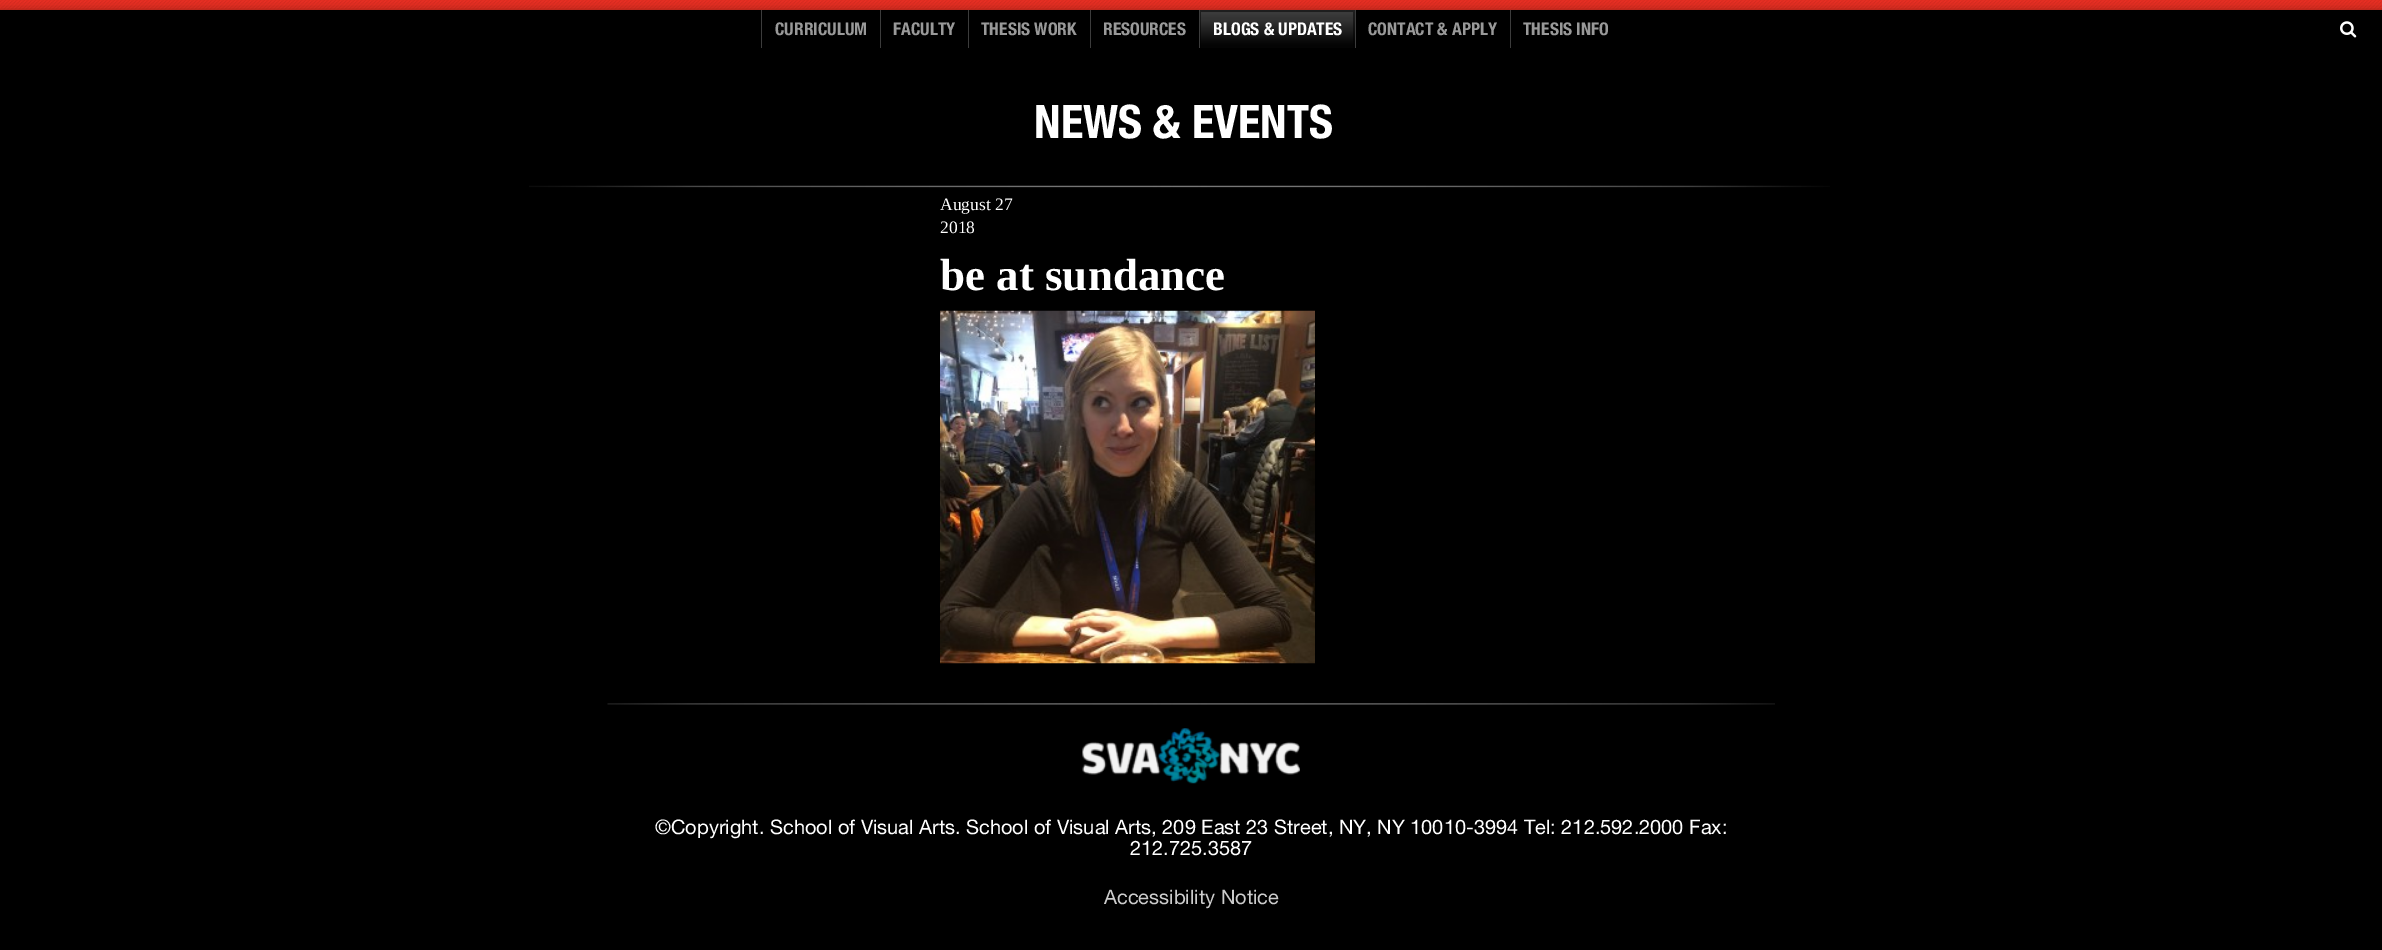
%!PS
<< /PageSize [2382 950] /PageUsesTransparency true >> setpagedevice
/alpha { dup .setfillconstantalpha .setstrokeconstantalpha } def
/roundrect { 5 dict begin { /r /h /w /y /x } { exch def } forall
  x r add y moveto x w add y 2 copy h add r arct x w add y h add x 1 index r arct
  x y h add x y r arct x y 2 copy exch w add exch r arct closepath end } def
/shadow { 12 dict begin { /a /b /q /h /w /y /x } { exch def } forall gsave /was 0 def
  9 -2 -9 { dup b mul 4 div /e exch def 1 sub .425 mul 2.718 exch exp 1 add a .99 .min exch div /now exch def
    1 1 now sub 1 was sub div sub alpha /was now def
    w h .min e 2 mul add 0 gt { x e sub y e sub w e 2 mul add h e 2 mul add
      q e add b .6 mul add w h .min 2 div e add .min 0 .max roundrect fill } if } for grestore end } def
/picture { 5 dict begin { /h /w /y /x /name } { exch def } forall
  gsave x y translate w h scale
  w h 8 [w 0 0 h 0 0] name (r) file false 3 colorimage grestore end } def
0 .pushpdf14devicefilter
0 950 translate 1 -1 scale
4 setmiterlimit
0 setgray
0 0 2382 950 rectfill
0.929 0.188 0.141 setrgbcolor
0 9 2382 1 rectfill
(img1.rgb) 0 0 2382 10 picture
gsave
newpath 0 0 moveto 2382 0 lineto 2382 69 lineto 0 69 lineto closepath 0 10 moveto 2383 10 lineto 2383 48 lineto 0 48 lineto closepath eoclip newpath
0 setgray
0 13 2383 37 0 6 0.6 shadow
grestore
0.235 setgray
761 10 1 38 rectfill
/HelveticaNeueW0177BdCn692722-Regular [17.5 0 0 -17.5 0 0] selectfont
0.6 setgray
775 35 moveto (CURRICULUM) show
0.235 setgray
880 10 1 38 rectfill
0.6 setgray
893 35 moveto (FACULTY) show
0.235 setgray
968 10 1 38 rectfill
0.6 setgray
981 35 moveto (THESIS WORK) show
0.235 setgray
1090 10 1 38 rectfill
0.6 setgray
1103 35 moveto (RESOURCES) show
0.235 setgray
1199 10 1 38 rectfill
gsave newpath 1200 10 moveto 1355 10 lineto 1355 48 lineto 1200 48 lineto closepath clip newpath
<< /ShadingType 2 /ColorSpace /DeviceRGB /Coords [1277 10 1277 48] /Extend [true true] /Function << /FunctionType 3 /Domain [0 1] /Functions [<< /FunctionType 2 /Domain [0 1] /C0 [0.243 0.243 0.243] /C1 [0.231 0.231 0.231] /N 1 >> << /FunctionType 2 /Domain [0 1] /C0 [0.231 0.231 0.231] /C1 [0.204 0.204 0.204] /N 1 >> << /FunctionType 2 /Domain [0 1] /C0 [0.204 0.204 0.204] /C1 [0.196 0.196 0.196] /N 1 >> << /FunctionType 2 /Domain [0 1] /C0 [0.196 0.196 0.196] /C1 [0.047 0.047 0.047] /N 1 >> << /FunctionType 2 /Domain [0 1] /C0 [0.047 0.047 0.047] /C1 [0.016 0.016 0.016] /N 1 >> << /FunctionType 2 /Domain [0 1] /C0 [0.016 0.016 0.016] /C1 [0.016 0.016 0.016] /N 1 >>] /Bounds [0.1 0.21 0.28 0.79 0.93] /Encode [0 1 0 1 0 1 0 1 0 1 0 1] >> >> shfill grestore
gsave
1200 10 155 38 rectclip
0.5 alpha
0 setgray
newpath 1076 -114 moveto 1478 -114 lineto 1478 171 lineto 1076 171 lineto closepath 1201 12 moveto 1353 12 lineto 1353 48 lineto 1201 48 lineto closepath eofill
grestore
1 setgray
1213 35 moveto (BLOGS & UPDATES) show
0.235 setgray
1355 10 1 38 rectfill
0.6 setgray
1368 35 moveto (CONTACT & APPLY) show
0.235 setgray
1510 10 1 38 rectfill
0.6 setgray
1523 35 moveto (THESIS INFO) show
(img2.rgb) 2340 21 17 17 picture
(img3.rgb) 529 185 1301 3 picture
/HelveticaNeueW0177BdCn692722-Regular [46.25 0 0 -46.25 0 0] selectfont
1 setgray
1034 138 moveto (NEWS & EVENTS) show
/LiberationSerif-Regular [17.5 0 0 -17.5 0 0] selectfont
940 210 moveto (August 27) show
940 233 moveto (2018) show
/LiberationSerif-Bold [45 0 0 -45 0 0] selectfont
940 290 moveto (be at sundance) show
(img4.rgb) 940 310 375 354 picture
(img5.rgb) 607 703 1168 2 picture
(img6.rgb) 1082 728 218 56 picture
/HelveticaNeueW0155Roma-Regular [20 0 0 -20 0 0] selectfont
655 834 moveto (©Copyright. School of Visual Arts. School of Visual Arts, 209 East 23 Street, NY, NY 10010-3994 Tel: 212.592.2000 Fax:) show
1130 855 moveto (212.725.3587) show
0.8 setgray
1104 904 moveto (Accessibility Notice) show
.poppdf14devicefilter showpage
